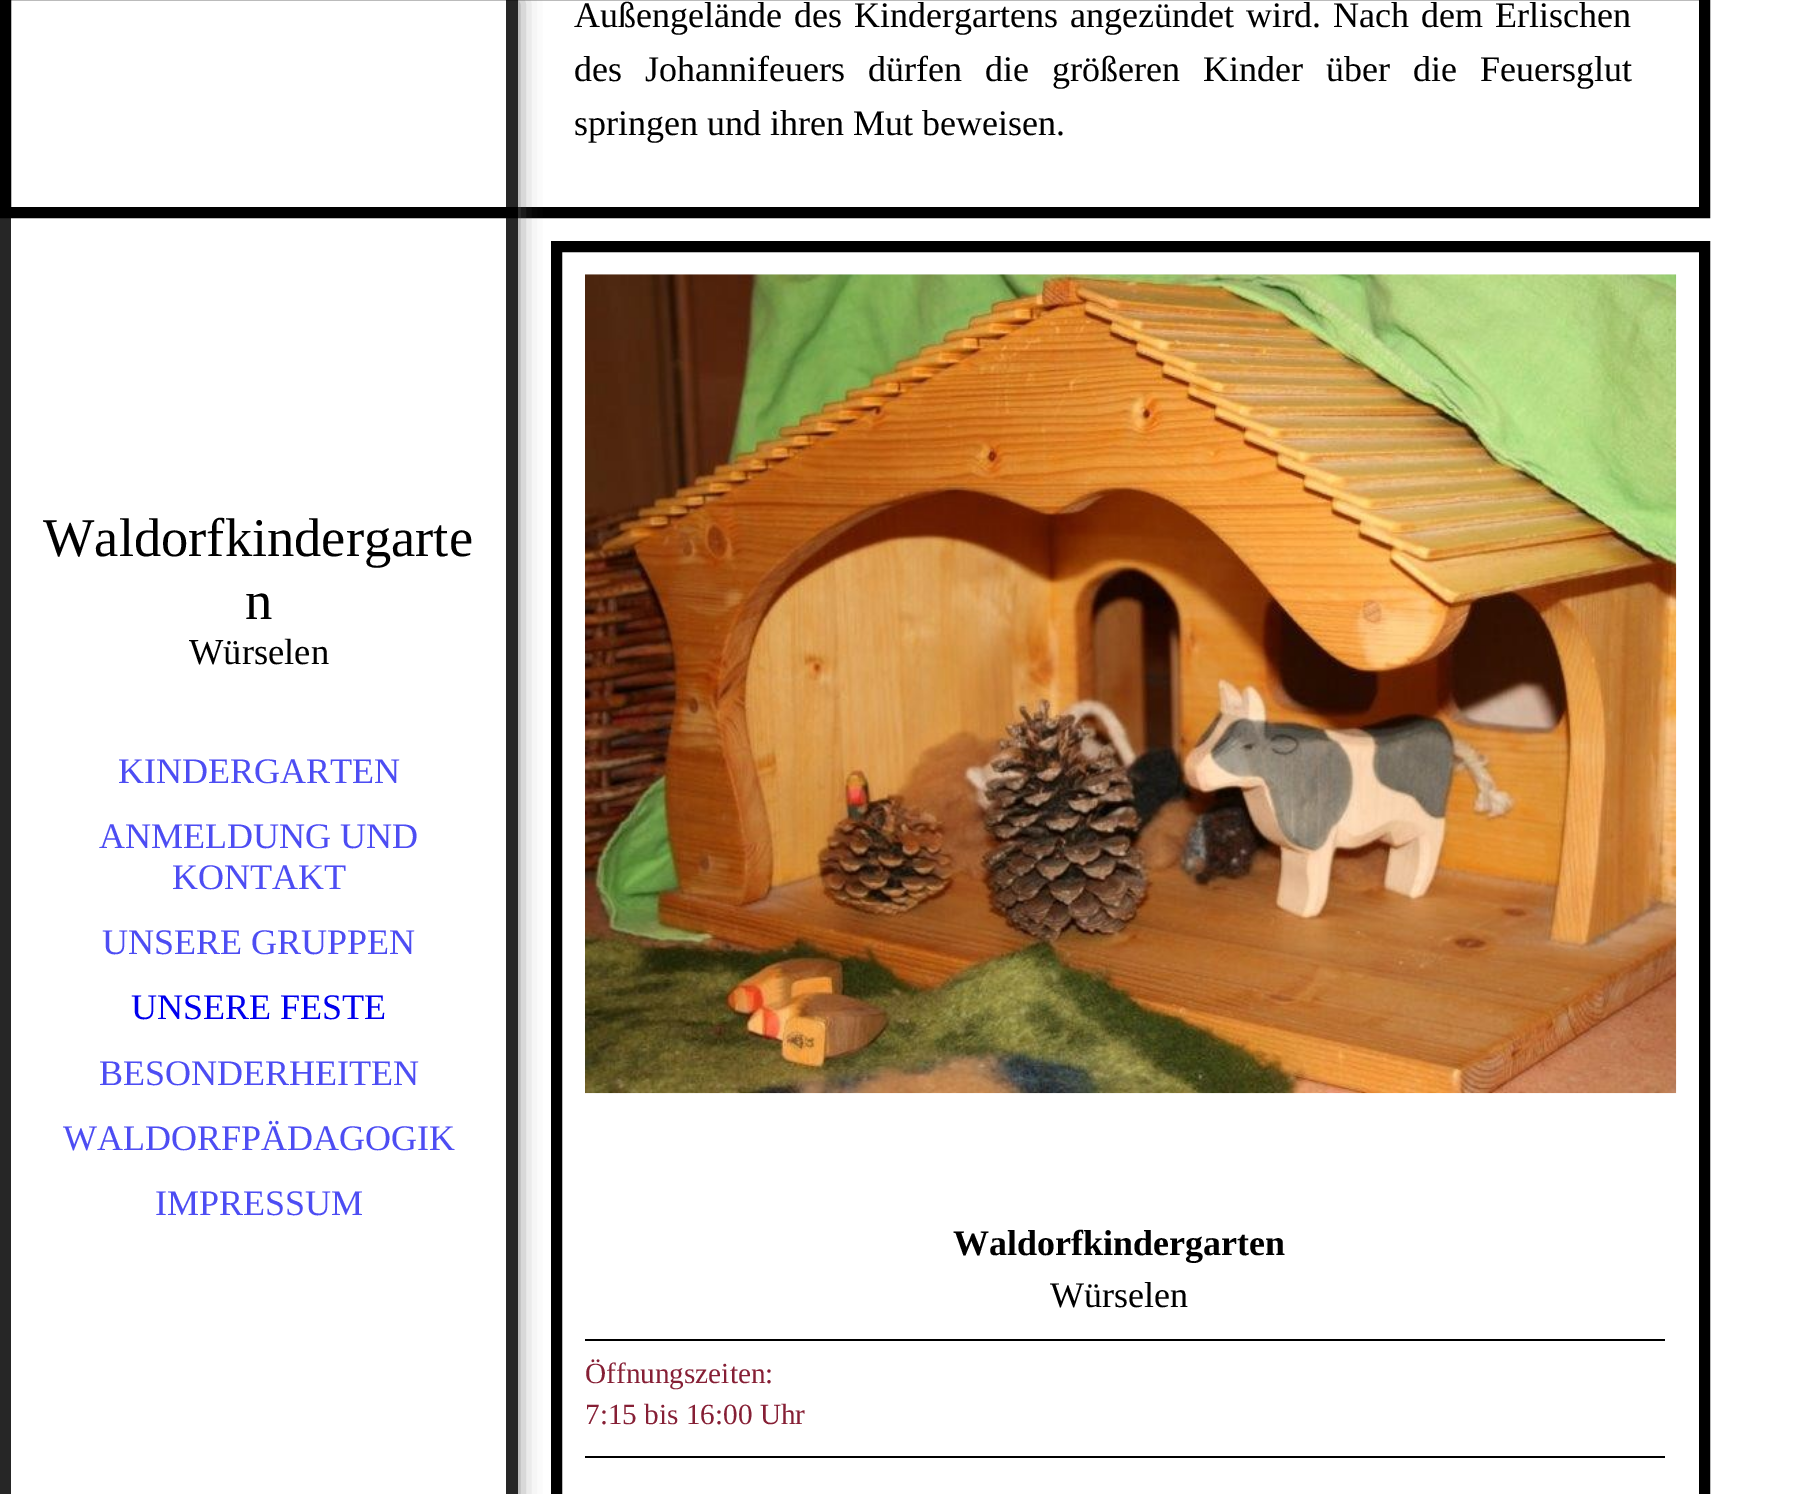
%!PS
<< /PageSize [1820 1494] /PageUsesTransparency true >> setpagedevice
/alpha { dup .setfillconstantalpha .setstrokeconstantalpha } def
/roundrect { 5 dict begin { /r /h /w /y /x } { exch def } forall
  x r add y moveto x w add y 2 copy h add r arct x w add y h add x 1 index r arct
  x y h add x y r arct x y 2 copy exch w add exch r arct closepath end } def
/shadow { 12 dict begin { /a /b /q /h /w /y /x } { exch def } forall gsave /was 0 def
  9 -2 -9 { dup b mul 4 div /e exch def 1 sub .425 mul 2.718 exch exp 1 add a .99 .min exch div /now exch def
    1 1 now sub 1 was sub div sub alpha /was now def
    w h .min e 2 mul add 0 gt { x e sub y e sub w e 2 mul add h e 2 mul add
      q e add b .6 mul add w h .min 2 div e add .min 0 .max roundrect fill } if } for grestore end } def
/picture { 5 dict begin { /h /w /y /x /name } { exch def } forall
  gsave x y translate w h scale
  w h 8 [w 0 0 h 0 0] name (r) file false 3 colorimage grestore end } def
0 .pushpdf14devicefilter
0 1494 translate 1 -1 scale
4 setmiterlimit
1 setgray
0 0 1820 1494 rectfill
0 setgray
11 setlinewidth
5.5 -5.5 1699 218 rectstroke
556.5 246.5 1148 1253 rectstroke
gsave
newpath 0 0 moveto 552 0 lineto 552 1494 lineto 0 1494 lineto closepath 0 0 moveto 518 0 lineto 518 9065 lineto 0 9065 lineto closepath eoclip newpath
0.4 setgray
0 0 518 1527 0 11 0.85 shadow
grestore
0.85 alpha
506 0 12 1494 rectfill
0 218 11 1276 rectfill
/LiberationSerif-Regular [36 0 0 -36 0 0] selectfont
1 alpha
574 27 moveto 3 0 32 (Außengelände des Kindergartens angezündet wird. Nach dem Erlischen) widthshow
574 81 moveto 14 0 32 (des Johannifeuers dürfen die größeren Kinder über die Feuersglut) widthshow
574 135 moveto (springen und ihren Mut beweisen.) show
/LiberationSerif-Regular [54.5 0 0 -54.5 0 0] selectfont
43 556 moveto (Waldorfkindergarte) show
245 619 moveto (n) show
/LiberationSerif-Regular [36.5 0 0 -36.5 0 0] selectfont
189 664 moveto (Würselen) show
/LiberationSerif-Regular [36 0 0 -36 0 0] selectfont
0.302 0.302 0.953 setrgbcolor
118 783 moveto (KINDERGARTEN) show
99 848 moveto (ANMELDUNG UND) show
172 889 moveto (KONTAKT) show
102 954 moveto (UNSERE GRUPPEN) show
0 0 0.933 setrgbcolor
131 1019 moveto (UNSERE FESTE) show
0.302 0.302 0.953 setrgbcolor
99 1085 moveto (BESONDERHEITEN) show
63 1150 moveto (WALDORFPÄDAGOGIK) show
155 1215 moveto (IMPRESSUM) show
(img1.rgb) 585 274 1092 820 picture
0 setgray
585 1339 1080 2 rectfill
/LiberationSerif-Bold [36 0 0 -36 0 0] selectfont
953 1255 moveto (Waldorfkindergarten) show
/LiberationSerif-Regular [36 0 0 -36 0 0] selectfont
1050 1307 moveto (Würselen) show
585 1456 1080 2 rectfill
/LiberationSerif-Regular [29.25 0 0 -29.25 0 0] selectfont
0.525 0.122 0.208 setrgbcolor
585 1383 moveto (Öffnungszeiten:) show
585 1424 moveto (7:15 bis 16:00 Uhr) show
.poppdf14devicefilter showpage
